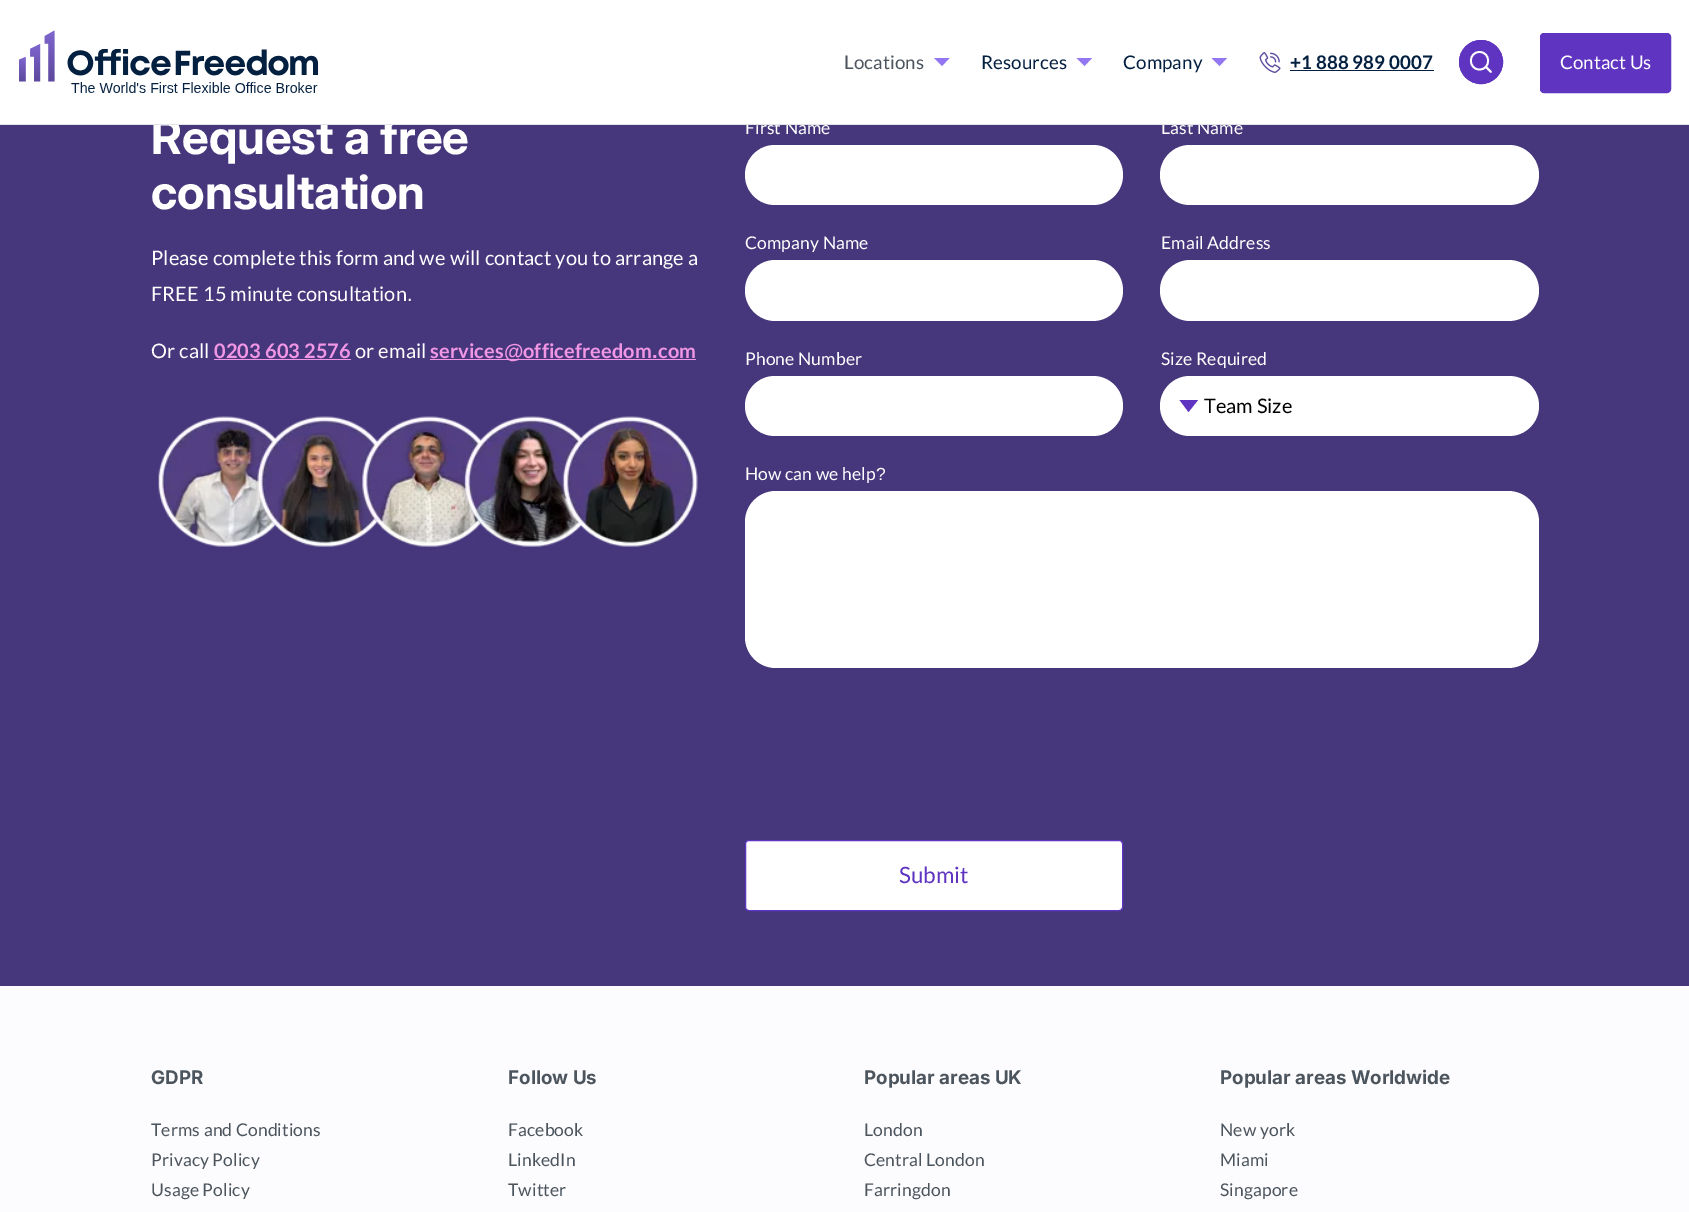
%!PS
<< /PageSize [1689 1212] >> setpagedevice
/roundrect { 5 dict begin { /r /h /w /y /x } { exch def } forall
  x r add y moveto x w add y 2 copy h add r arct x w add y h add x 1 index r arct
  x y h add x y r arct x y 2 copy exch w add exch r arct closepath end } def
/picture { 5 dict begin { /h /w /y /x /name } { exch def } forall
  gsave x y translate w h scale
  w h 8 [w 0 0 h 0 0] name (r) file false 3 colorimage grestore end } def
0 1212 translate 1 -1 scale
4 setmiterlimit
0.275 0.216 0.486 setrgbcolor
0 0 1689 1212 rectfill
1 setgray
0 0 1689 124 rectfill
/Inter-Bold [47.5 0 0 -47.5 0 0] selectfont
151 154 moveto (Request a free) show
/Lato-Regular [17.5 0 0 -17.5 0 0] selectfont
745 134 moveto 0.12 0 (First Name) ashow
1161 134 moveto 0.12 0 (Last Name) ashow
0.886 0.898 0.91 setrgbcolor
0 124 1689 1 rectfill
(img1.rgb) 19 30 300 63 picture
/Lato-Regular [18.75 0 0 -18.75 0 0] selectfont
0.298 0.329 0.365 setrgbcolor
844 69 moveto 0.12 0 (Locations) ashow
0.576 0.463 0.945 setrgbcolor
newpath 949.5 58 moveto 942 66 lineto 934 58 lineto closepath eofill
0.016 0.125 0.251 setrgbcolor
981 69 moveto 0.12 0 (Resources) ashow
0.576 0.463 0.945 setrgbcolor
newpath 1092 58 moveto 1084.5 66 lineto 1076.5 58 lineto closepath eofill
0.016 0.125 0.251 setrgbcolor
1123 69 moveto 0.12 0 (Company) ashow
0.576 0.463 0.945 setrgbcolor
newpath 1227 58 moveto 1219.5 66 lineto 1211.5 58 lineto closepath eofill
(img2.rgb) 1259 52 22 21 picture
/LiberationSans-Bold [18.75 0 0 -18.75 0 0] selectfont
0.016 0.125 0.251 setrgbcolor
1290 69 moveto 0.12 0 (+) ashow
1290 70 144 1 rectfill
/Lato-Bold [18.75 0 0 -18.75 0 0] selectfont
1301 69 moveto 0.12 0 (1 888 989 0007) ashow
0.373 0.204 0.757 setrgbcolor
newpath 1481 62 22 0 360 arc closepath fill
1 setgray
1.8 setlinewidth
1 setlinecap
1 setlinejoin
newpath 1479.5 69.5 moveto 1491 69.5 1491 52 1479.5 52 curveto 1468 52 1468 69.5 1479.5 69.5 curveto closepath 1486 67 moveto 1491 72 lineto stroke
0.373 0.204 0.757 setrgbcolor
1 setlinewidth
0 setlinecap
0 setlinejoin
newpath 1481 62 21.5 0 360 arc closepath stroke
1540.5 33.5 130 59 3.5 roundrect gsave fill grestore
stroke
/Lato-Regular [18.75 0 0 -18.75 0 0] selectfont
1 setgray
1560 69 moveto (Contact Us) show
/Inter-Bold [47.5 0 0 -47.5 0 0] selectfont
151 209 moveto (consultation) show
/Lato-Regular [20 0 0 -20 0 0] selectfont
151 265 moveto 0.12 0 (Please complete this form and we will contact you to arrange a) ashow
151 301 moveto 0.12 0 (FREE 15 minute consultation) ashow
/LiberationSans-Regular [20 0 0 -20 0 0] selectfont
407 301 moveto 0.12 0 (.) ashow
/Lato-Regular [20 0 0 -20 0 0] selectfont
151 358 moveto 0.12 0 (Or call) ashow
/Lato-Bold [20 0 0 -20 0 0] selectfont
0.945 0.588 0.894 setrgbcolor
214 358 moveto 0.12 0 (0203 603 2576) ashow
214 359 137 1 rectfill
/Lato-Regular [20 0 0 -20 0 0] selectfont
1 setgray
355 358 moveto 0.12 0 (or email) ashow
/Lato-Bold [20 0 0 -20 0 0] selectfont
0.945 0.588 0.894 setrgbcolor
430 358 moveto 0.12 0 (services) ashow
430 359 266 1 rectfill
/LiberationSans-Bold [20 0 0 -20 0 0] selectfont
504 358 moveto 0.12 0 (@) ashow
/Lato-Bold [20 0 0 -20 0 0] selectfont
523 358 moveto 0.12 0 (officefreedom) ashow
/LiberationSans-Bold [20 0 0 -20 0 0] selectfont
652 358 moveto 0.12 0 (.) ashow
/Lato-Bold [20 0 0 -20 0 0] selectfont
658 358 moveto 0.12 0 (com) ashow
(img3.rgb) 158 416 540 131 picture
1 setgray
745 145 378 60 30 roundrect fill
1160 145 379 60 30 roundrect fill
/Lato-Regular [17.5 0 0 -17.5 0 0] selectfont
745 249 moveto 0.12 0 (Company Name) ashow
745 260 378 61 30.5 roundrect fill
1161 249 moveto 0.12 0 (Email Address) ashow
1160 260 379 61 30.5 roundrect fill
745 365 moveto 0.12 0 (Phone Number) ashow
745 376 378 60 30 roundrect fill
1161 365 moveto 0.12 0 (Size Required) ashow
1160 376 379 60 30 roundrect fill
0.373 0.204 0.757 setrgbcolor
newpath 1198 400 moveto 1179.5 400 lineto 1188.5 412 lineto closepath fill
/Lato-Regular [20 0 0 -20 0 0] selectfont
0 setgray
1204 413 moveto (Team Size) show
/Lato-Regular [17.5 0 0 -17.5 0 0] selectfont
1 setgray
745 480 moveto 0.12 0 (How can we help) ashow
/LiberationSans-Regular [17.5 0 0 -17.5 0 0] selectfont
876 480 moveto 0.12 0 (?) ashow
745 491 794 177 31 roundrect fill
745.5 840.5 377 70 3.5 roundrect gsave fill grestore
0.373 0.204 0.757 setrgbcolor
stroke
/Lato-Regular [22.5 0 0 -22.5 0 0] selectfont
899 883 moveto (Submit) show
0.988 0.988 0.996 setrgbcolor
0 986 1689 226 rectfill
/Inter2-Bold [18.75 0 0 -18.75 0 0] selectfont
0.298 0.329 0.365 setrgbcolor
151 1084 moveto (GDPR) show
/Lato-Regular [17.5 0 0 -17.5 0 0] selectfont
151 1136 moveto 0.12 0 (Terms and Conditions) ashow
151 1166 moveto 0.12 0 (Privacy Policy) ashow
151 1196 moveto 0.12 0 (Usage Policy) ashow
/Inter2-Bold [18.75 0 0 -18.75 0 0] selectfont
508 1084 moveto (Follow Us) show
/Lato-Regular [17.5 0 0 -17.5 0 0] selectfont
508 1136 moveto 0.12 0 (Facebook) ashow
508 1166 moveto 0.12 0 (LinkedIn) ashow
508 1196 moveto 0.12 0 (Twitter) ashow
/Inter2-Bold [18.75 0 0 -18.75 0 0] selectfont
864 1084 moveto (Popular areas UK) show
/Lato-Regular [17.5 0 0 -17.5 0 0] selectfont
864 1136 moveto 0.12 0 (London) ashow
864 1166 moveto 0.12 0 (Central London) ashow
864 1196 moveto 0.12 0 (Farringdon) ashow
/Inter2-Bold [18.75 0 0 -18.75 0 0] selectfont
1220 1084 moveto (Popular areas Worldwide) show
/Lato-Regular [17.5 0 0 -17.5 0 0] selectfont
1220 1136 moveto 0.12 0 (New york) ashow
1220 1166 moveto 0.12 0 (Miami) ashow
1220 1196 moveto 0.12 0 (Singapore) ashow
showpage
